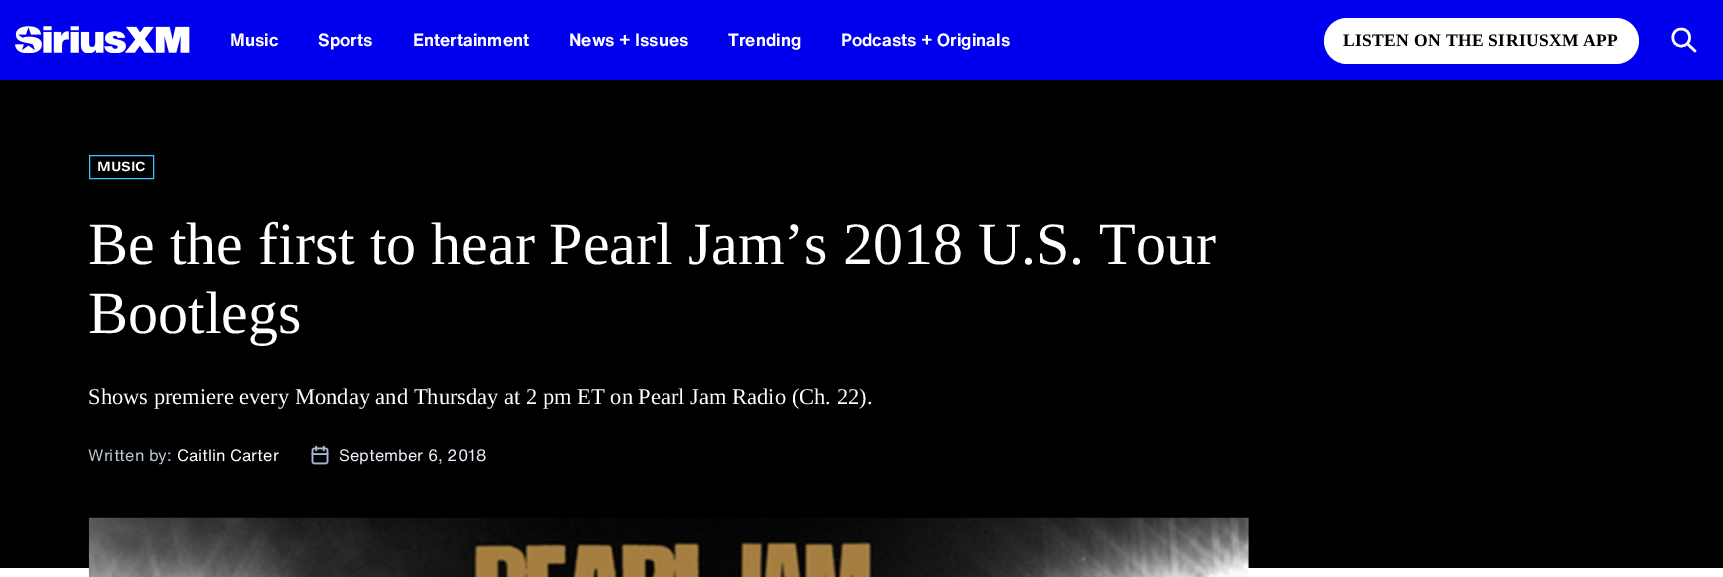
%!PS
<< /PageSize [1723 577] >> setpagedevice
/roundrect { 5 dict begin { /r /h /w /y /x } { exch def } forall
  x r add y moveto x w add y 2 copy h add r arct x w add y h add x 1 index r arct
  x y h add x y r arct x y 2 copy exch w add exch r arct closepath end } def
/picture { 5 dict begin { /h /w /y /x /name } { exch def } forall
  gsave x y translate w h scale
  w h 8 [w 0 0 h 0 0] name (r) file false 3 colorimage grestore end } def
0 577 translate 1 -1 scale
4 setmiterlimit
1 setgray
0 0 1723 577 rectfill
0 0 0.937 setrgbcolor
0 0 1723 80 rectfill
(img1.rgb) 15 26 175 27 picture
/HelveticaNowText-Bold [17.5 0 0 -17.5 0 0] selectfont
1 setgray
230 46 moveto (Music) show
318 46 moveto (Sports) show
413 46 moveto (Entertainment) show
569 46 moveto (News + Issues) show
728 46 moveto (Trending) show
841 46 moveto (Podcasts + Originals) show
1324 18 315 46 23 roundrect fill
/LiberationSerif-Bold [17.5 0 0 -17.5 0 0] selectfont
0 setgray
1343 46 moveto 0.35 0 (LISTEN ON THE SIRIUSXM APP) ashow
1 setgray
2.5 setlinewidth
1 setlinecap
1 setlinejoin
newpath 1681 46 moveto 1692.5 46 1692.5 29 1681 29 curveto 1670 29 1670 46 1681 46 curveto closepath 1695 51 moveto 1687.5 44 lineto stroke
0 setgray
0 80 1723 488 rectfill
0.192 0.784 1 setrgbcolor
1 setlinewidth
0 setlinecap
0 setlinejoin
89.5 155.5 64 23 rectstroke
/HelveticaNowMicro-Bold [12.5 0 0 -12.5 0 0] selectfont
1 setgray
97 171 moveto (MUSIC) show
/LiberationSerif-Regular [60 0 0 -60 0 0] selectfont
88 264 moveto (Be the first to hear Pearl Jam’s 2018 U.S. Tour) show
88 333 moveto (Bootlegs) show
/LiberationSerif-Regular [22.5 0 0 -22.5 0 0] selectfont
88 404 moveto (Shows premiere every Monday and Thursday at 2 pm ET on Pearl Jam Radio \(Ch. 22\).) show
/HelveticaNowText-Regular [16.25 0 0 -16.25 0 0] selectfont
0.737 0.78 0.839 setrgbcolor
88 461 moveto (Written by:) show
1 setgray
177 461 moveto (Caitlin Carter) show
(img2.rgb) 311 445 18 20 picture
0.925 0.945 0.98 setrgbcolor
339 461 moveto (September 6, 2018) show
(img3.rgb) 88 517 1161 60 picture
showpage
